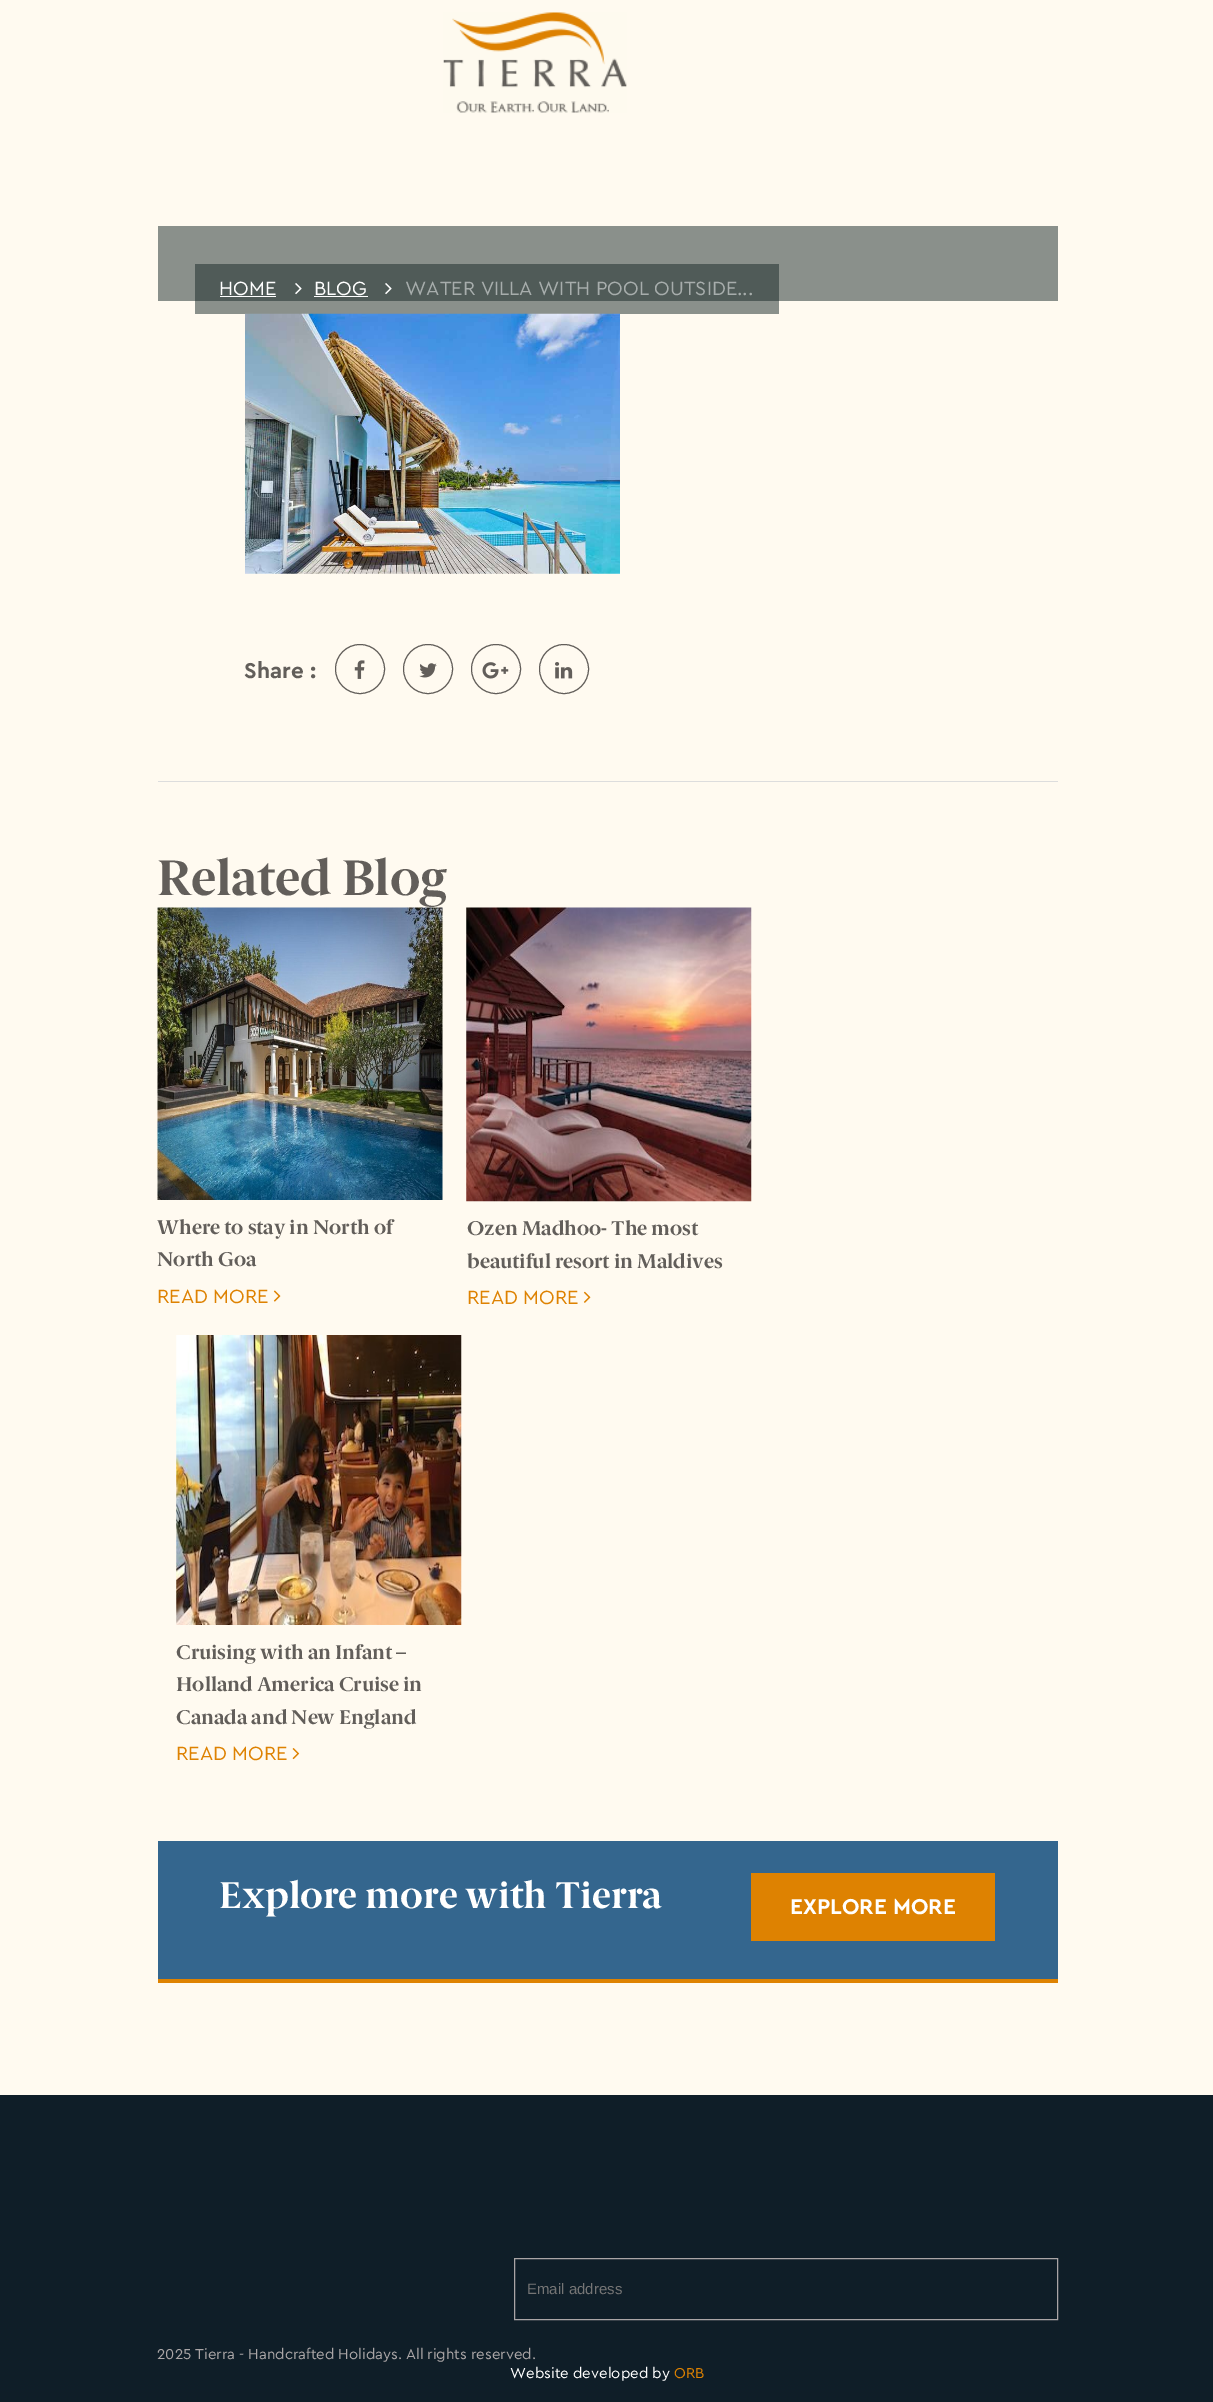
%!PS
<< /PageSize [1213 2402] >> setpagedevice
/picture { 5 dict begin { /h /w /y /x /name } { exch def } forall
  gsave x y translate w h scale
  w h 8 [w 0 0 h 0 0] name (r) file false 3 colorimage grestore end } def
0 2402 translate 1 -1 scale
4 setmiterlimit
1 0.98 0.941 setrgbcolor
0 0 1213 2402 rectfill
0.541 0.565 0.545 setrgbcolor
195 301 584 13 rectfill
(img1.rgb) 443 12 184 101 picture
158 226 900 75 rectfill
0.314 0.357 0.345 setrgbcolor
195 264 584 37 rectfill
/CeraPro-Regular [20 0 0 -20 0 0] selectfont
1 setgray
219 295 moveto (HOME) show
220 296 56 1 rectfill
(img2.rgb) 295 283 7 12 picture
314 295 moveto (BLOG) show
314 296 54 1 rectfill
(img2.rgb) 385 283 7 12 picture
0.655 0.678 0.675 setrgbcolor
405 295 moveto (WATER VILLA WITH POOL OUTSIDE...) show
0.867 setgray
158 781 900 1 rectfill
(img3.rgb) 245 313 375 261 picture
/CeraPro-Bold [22.5 0 0 -22.5 0 0] selectfont
0.384 0.369 0.353 setrgbcolor
244 678 moveto (Share :) show
newpath 360 669 24.5 0 360 arc closepath stroke
(img4.rgb) 354 660 11 19 picture
newpath 428 669 24.5 0 360 arc closepath stroke
(img5.rgb) 419 663 18 15 picture
newpath 496 669 24.5 0 360 arc closepath stroke
(img6.rgb) 482 662 27 17 picture
newpath 564 669 24.5 0 360 arc closepath stroke
(img7.rgb) 555 662 18 17 picture
/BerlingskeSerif-Bold [50 0 0 -50 0 0] selectfont
157 895 moveto (Related Blog) show
(img8.rgb) 157 907 286 293 picture
/BerlingskeSerif-Bold [20 0 0 -20 0 0] selectfont
157 1234 moveto (Where to stay in North of) show
157 1266 moveto (North Goa) show
/CeraPro-Regular [20 0 0 -20 0 0] selectfont
0.871 0.51 0.004 setrgbcolor
157 1303 moveto (READ MORE) show
(img9.rgb) 273 1290 8 12 picture
(img10.rgb) 466 907 286 295 picture
/BerlingskeSerif-Bold [20 0 0 -20 0 0] selectfont
0.384 0.369 0.353 setrgbcolor
467 1235 moveto (Ozen Madhoo- The most) show
467 1268 moveto (beautiful resort in Maldives) show
/CeraPro-Regular [20 0 0 -20 0 0] selectfont
0.871 0.51 0.004 setrgbcolor
467 1304 moveto (READ MORE) show
(img11.rgb) 583 1291 8 12 picture
(img12.rgb) 176 1335 286 290 picture
/BerlingskeSerif-Bold [20 0 0 -20 0 0] selectfont
0.384 0.369 0.353 setrgbcolor
176 1659 moveto (Cruising with an Infant –) show
176 1691 moveto (Holland America Cruise in) show
176 1724 moveto (Canada and New England) show
/CeraPro-Regular [20 0 0 -20 0 0] selectfont
0.871 0.51 0.004 setrgbcolor
176 1760 moveto (READ MORE) show
(img13.rgb) 292 1748 8 12 picture
0.204 0.4 0.557 setrgbcolor
158 1841 900 138 rectfill
0.871 0.51 0.004 setrgbcolor
158 1979 900 4 rectfill
/BerlingskeSerif-Bold [37.5 0 0 -37.5 0 0] selectfont
1 setgray
219 1908 moveto (Explore more with Tierra) show
0.871 0.51 0.004 setrgbcolor
751 1873 244 68 rectfill
/CeraPro-Bold [22.5 0 0 -22.5 0 0] selectfont
1 setgray
790 1914 moveto (EXPLORE MORE) show
0.059 0.118 0.157 setrgbcolor
0 2095 1213 307 rectfill
0.667 0.647 0.651 setrgbcolor
514.5 2258.5 543 61 rectstroke
/LiberationSans-Regular [15 0 0 -15 0 0] selectfont
0.459 setgray
527 2294 moveto (Email address) show
/CeraPro-Regular [15 0 0 -15 0 0] selectfont
0.667 0.647 0.651 setrgbcolor
157 2359 moveto -0.25 0 32 (2025 Tierra - Handcrafted Holidays. All rights reserved.) widthshow
1 setgray
510 2378 moveto (Website developed by) show
0.871 0.51 0.004 setrgbcolor
674 2378 moveto (ORB) show
showpage
